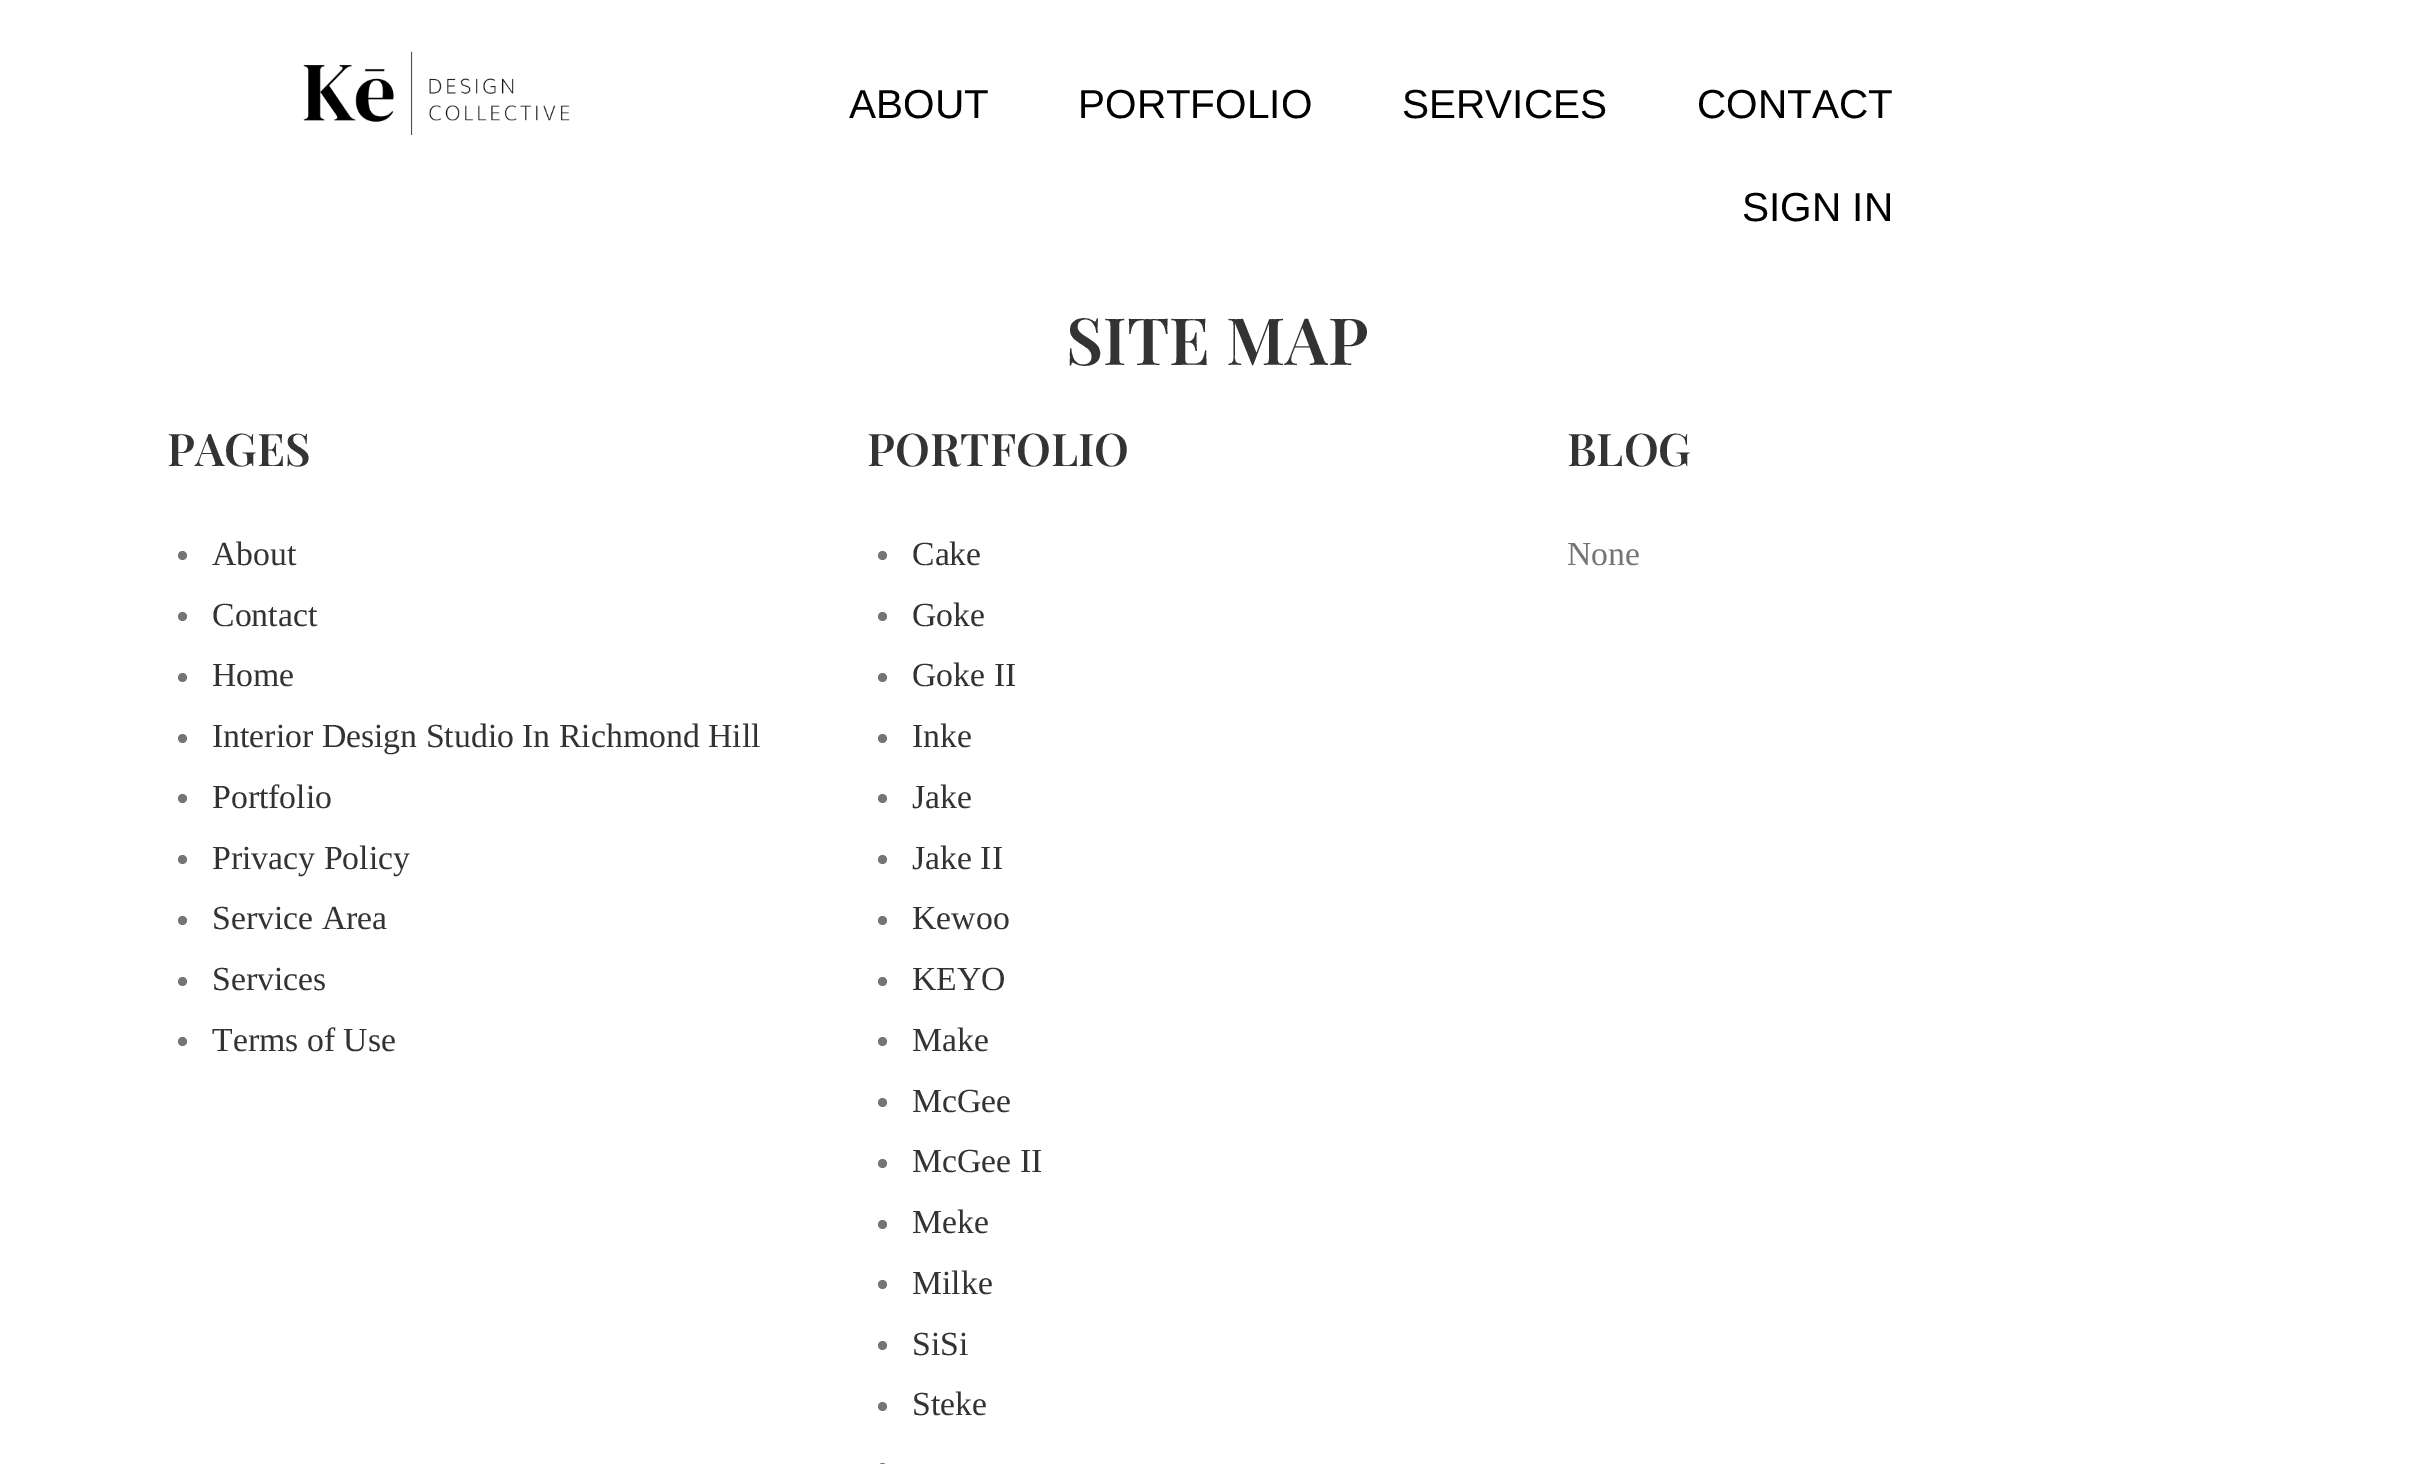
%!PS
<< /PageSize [2433 1464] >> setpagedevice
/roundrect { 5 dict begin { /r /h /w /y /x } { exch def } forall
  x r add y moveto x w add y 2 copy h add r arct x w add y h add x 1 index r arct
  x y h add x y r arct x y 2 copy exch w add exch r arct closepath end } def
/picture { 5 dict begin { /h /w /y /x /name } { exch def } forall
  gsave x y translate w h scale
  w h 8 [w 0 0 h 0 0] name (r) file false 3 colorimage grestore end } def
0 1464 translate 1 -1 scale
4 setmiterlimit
1 setgray
0 0 2433 1464 rectfill
(img1.rgb) 303 51 267 84 picture
/LiberationSans-Regular [40.5 0 0 -40.5 0 0] selectfont
0 setgray
849 118 moveto (ABOUT) show
1078 118 moveto (PORTFOLIO) show
1402 118 moveto (SERVICES) show
1697 118 moveto (CONTACT) show
1742 221 moveto (SIGN IN) show
/PlayfairDisplay-SemiBold [65.25 0 0 -65.25 0 0] selectfont
0.2 setgray
1066 365 moveto (SITE MAP) show
/PlayfairDisplay-SemiBold [45 0 0 -45 0 0] selectfont
167 466 moveto (PAGES) show
0.459 setgray
newpath 182.5 555.5 4.5 0 360 arc closepath fill
/LiberationSerif-Regular [33.75 0 0 -33.75 0 0] selectfont
0.2 setgray
212 565 moveto (About) show
0.459 setgray
newpath 182.5 616.5 4.5 0 360 arc closepath fill
0.2 setgray
212 626 moveto (Contact) show
0.459 setgray
newpath 182.5 677.5 4.5 0 360 arc closepath fill
0.2 setgray
212 686 moveto (Home) show
0.459 setgray
newpath 182.5 738.5 4.5 0 360 arc closepath fill
0.2 setgray
212 747 moveto (Interior Design Studio In Richmond Hill) show
0.459 setgray
newpath 182.5 798.5 4.5 0 360 arc closepath fill
0.2 setgray
212 808 moveto (Portfolio) show
0.459 setgray
newpath 182.5 859.5 4.5 0 360 arc closepath fill
0.2 setgray
212 869 moveto (Privacy Policy) show
0.459 setgray
newpath 182.5 920.5 4.5 0 360 arc closepath fill
0.2 setgray
212 929 moveto (Service Area) show
0.459 setgray
newpath 182.5 981.5 4.5 0 360 arc closepath fill
0.2 setgray
212 990 moveto (Services) show
0.459 setgray
newpath 182.5 1041.5 4.5 0 360 arc closepath fill
0.2 setgray
212 1051 moveto (Terms of Use) show
/PlayfairDisplay-SemiBold [45 0 0 -45 0 0] selectfont
867 466 moveto (PORTFOLIO) show
0.459 setgray
newpath 882.5 555.5 4.5 0 360 arc closepath fill
/LiberationSerif-Regular [33.75 0 0 -33.75 0 0] selectfont
0.2 setgray
912 565 moveto (Cake) show
0.459 setgray
newpath 882.5 616.5 4.5 0 360 arc closepath fill
0.2 setgray
912 626 moveto (Goke) show
0.459 setgray
newpath 882.5 677.5 4.5 0 360 arc closepath fill
0.2 setgray
912 686 moveto (Goke II) show
0.459 setgray
newpath 882.5 738.5 4.5 0 360 arc closepath fill
0.2 setgray
912 747 moveto (Inke) show
0.459 setgray
newpath 882.5 798.5 4.5 0 360 arc closepath fill
0.2 setgray
912 808 moveto (Jake) show
0.459 setgray
newpath 882.5 859.5 4.5 0 360 arc closepath fill
0.2 setgray
912 869 moveto (Jake II) show
0.459 setgray
newpath 882.5 920.5 4.5 0 360 arc closepath fill
0.2 setgray
912 929 moveto (Kewoo) show
0.459 setgray
newpath 882.5 981.5 4.5 0 360 arc closepath fill
0.2 setgray
912 990 moveto (KEYO) show
0.459 setgray
newpath 882.5 1041.5 4.5 0 360 arc closepath fill
0.2 setgray
912 1051 moveto (Make) show
0.459 setgray
newpath 882.5 1102.5 4.5 0 360 arc closepath fill
0.2 setgray
912 1112 moveto (McGee) show
0.459 setgray
newpath 882.5 1163.5 4.5 0 360 arc closepath fill
0.2 setgray
912 1172 moveto (McGee II) show
0.459 setgray
newpath 882.5 1224.5 4.5 0 360 arc closepath fill
0.2 setgray
912 1233 moveto (Meke) show
0.459 setgray
newpath 882.5 1284.5 4.5 0 360 arc closepath fill
0.2 setgray
912 1294 moveto (Milke) show
0.459 setgray
newpath 882.5 1345.5 4.5 0 360 arc closepath fill
0.2 setgray
912 1355 moveto (SiSi) show
0.459 setgray
newpath 882.5 1406.5 4.5 0 360 arc closepath fill
0.2 setgray
912 1415 moveto (Steke) show
0.459 setgray
878 1463 9 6 4.5 roundrect fill
/PlayfairDisplay-SemiBold [45 0 0 -45 0 0] selectfont
0.2 setgray
1567 466 moveto (BLOG) show
/LiberationSerif-Regular [33.75 0 0 -33.75 0 0] selectfont
0.459 setgray
1567 565 moveto (None) show
showpage
